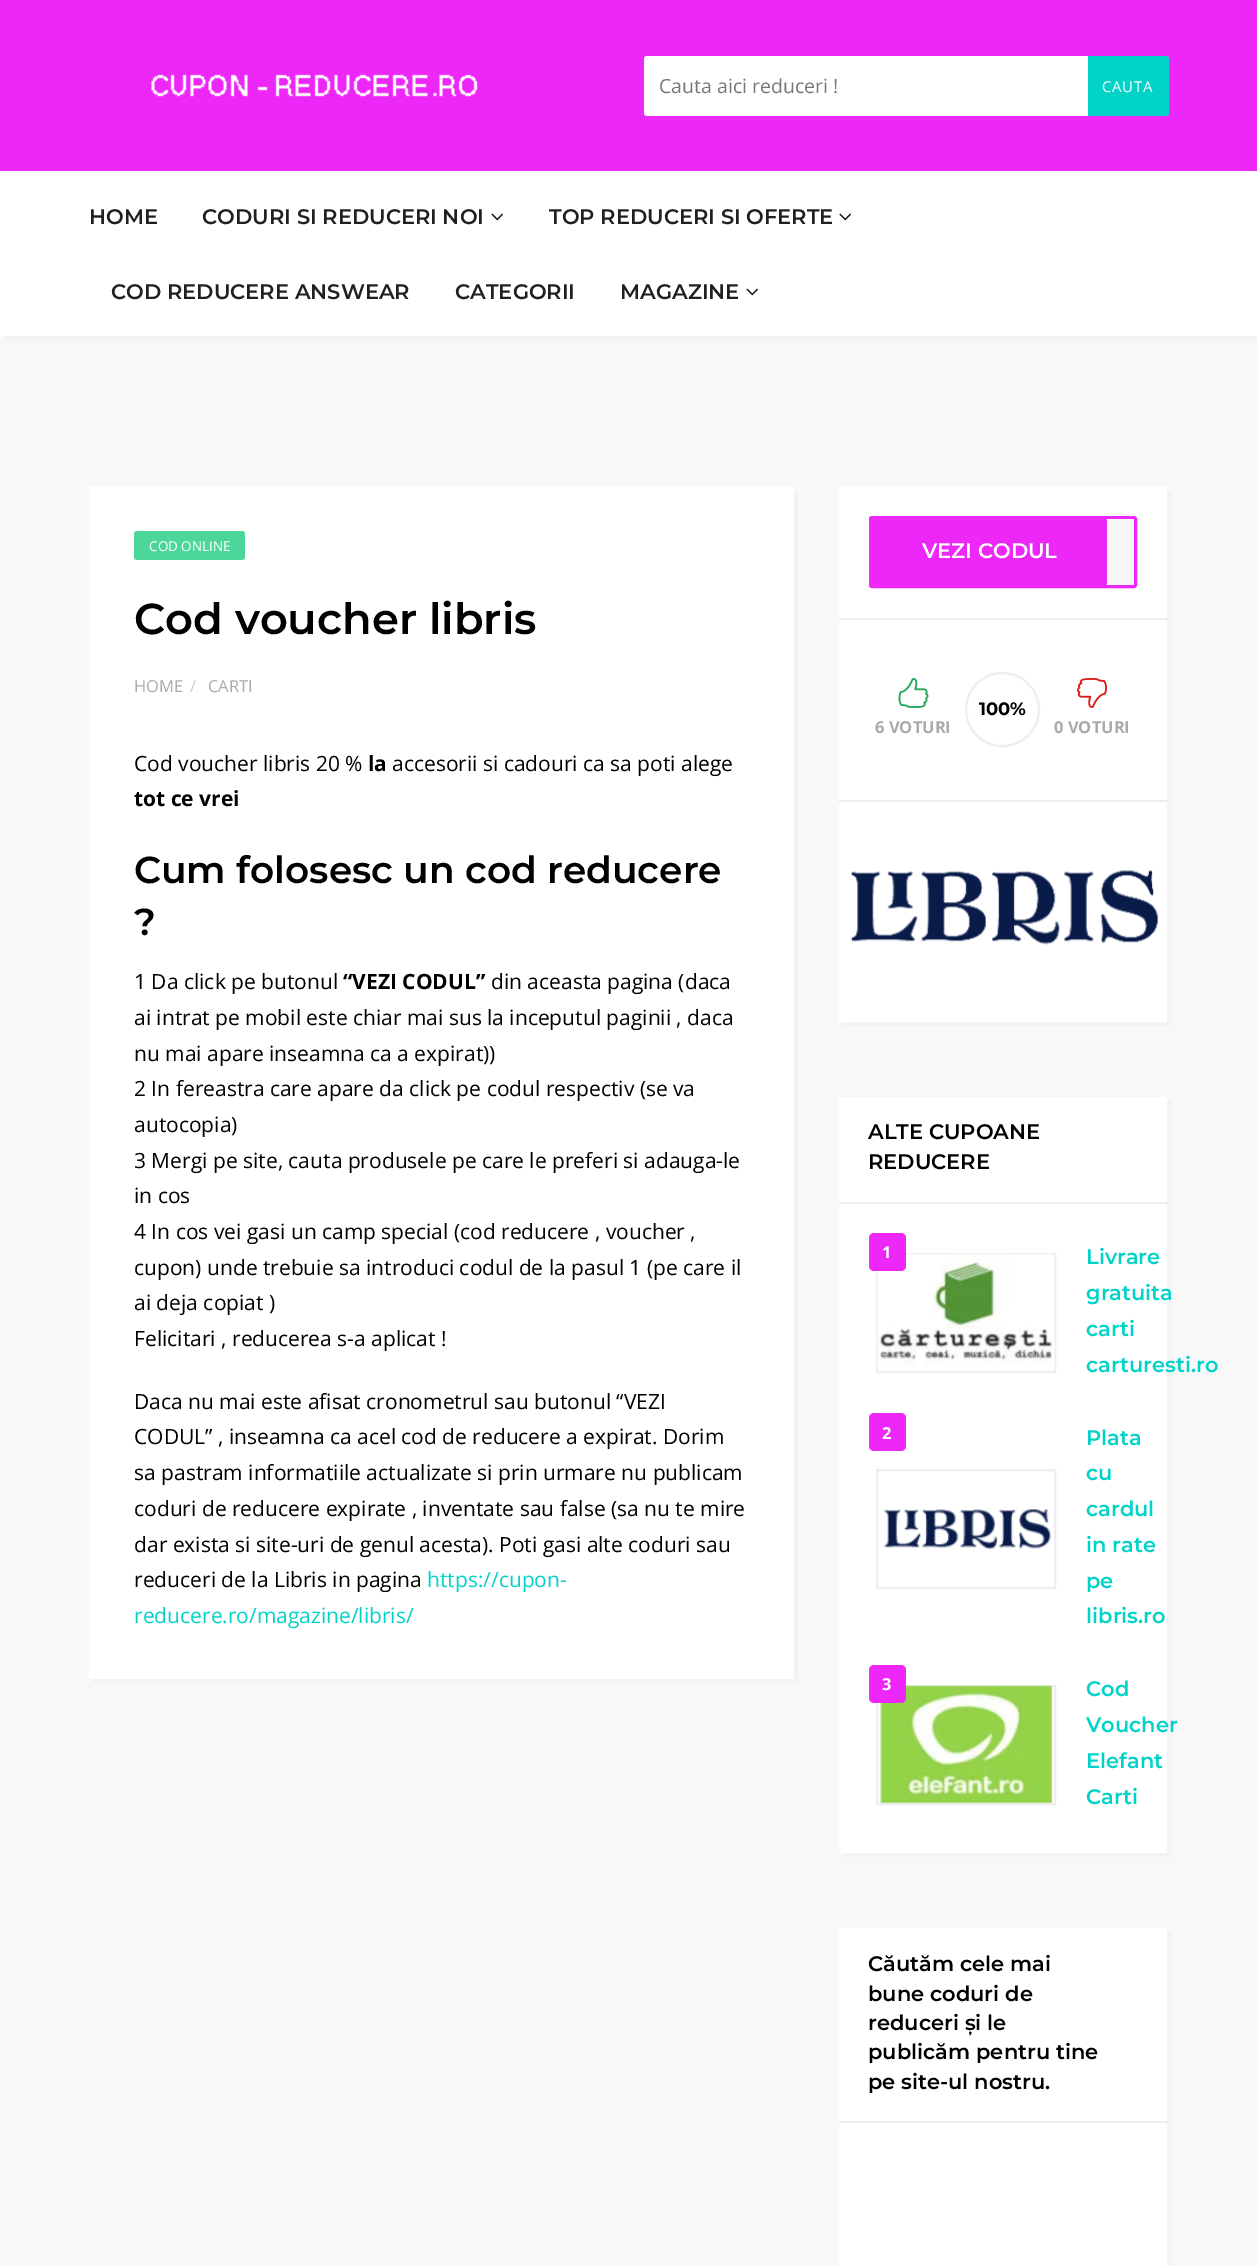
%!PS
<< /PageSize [1257 2266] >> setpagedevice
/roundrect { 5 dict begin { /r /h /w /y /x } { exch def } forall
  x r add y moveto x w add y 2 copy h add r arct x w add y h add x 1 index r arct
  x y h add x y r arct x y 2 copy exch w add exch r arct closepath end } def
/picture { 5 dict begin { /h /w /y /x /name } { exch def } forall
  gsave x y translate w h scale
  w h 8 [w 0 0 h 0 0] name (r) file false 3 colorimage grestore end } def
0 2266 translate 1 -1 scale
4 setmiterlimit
0.973 setgray
0 0 1257 2266 rectfill
0.925 0.153 0.969 setrgbcolor
0 0 1257 171 rectfill
(img1.rgb) 151 74 327 23 picture
1 setgray
644 56 525 60 3 roundrect fill
/OpenSans-Regular [19.5 0 0 -19.5 0 0] selectfont
0.467 setgray
659 93 moveto (Cauta aici reduceri !) show
0.008 0.827 0.788 setrgbcolor
newpath 1088 56 moveto 1166 56 lineto 1167.5 56 1169 57.5 1169 59 curveto 1169 113 lineto 1169 114.5 1167.5 116 1166 116 curveto 1088 116 lineto closepath fill
/OpenSans-Regular [15 0 0 -15 0 0] selectfont
1 setgray
1102 92 moveto 0.75 0 (CAUTA) ashow
0.953 setgray
newpath 5 336 moveto 5 341 lineto 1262 341 lineto 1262 176 lineto 1257 176 lineto 1257 336 lineto closepath fill
1 setgray
0 171 1257 165 rectfill
/Montserrat-SemiBold [21 0 0 -21 0 0] selectfont
0.125 setgray
89 224 moveto (HOME) show
202 224 moveto (CODURI SI REDUCERI NOI) show
(img2.rgb) 491 213 13 8 picture
549 224 moveto (TOP REDUCERI SI OFERTE) show
(img2.rgb) 839 213 13 8 picture
111 299 moveto (COD REDUCERE ANSWEAR) show
455 299 moveto (CATEGORII) show
620 299 moveto (MAGAZINE) show
(img2.rgb) 746 288 13 8 picture
0.953 setgray
newpath 93 1678 moveto 93 1683 lineto 798 1683 lineto 798 491 lineto 794 491 lineto 794 1678 lineto closepath fill
1 setgray
89 486 705 1193 rectfill
0.302 0.839 0.604 setrgbcolor
134 531 111 29 3 roundrect fill
/OpenSans-Regular [13.5 0 0 -13.5 0 0] selectfont
1 setgray
149 551 moveto (COD ONLINE) show
/Montserrat-SemiBold [43.25 0 0 -43.25 0 0] selectfont
0 setgray
134 634 moveto (Cod voucher libris) show
/OpenSans-Regular [16.5 0 0 -16.5 0 0] selectfont
0.667 setgray
134 692 moveto (HOME) show
0.8 setgray
190 692 moveto (/) show
0.667 setgray
208 692 moveto (CARTI) show
/OpenSans-Regular [21 0 0 -21 0 0] selectfont
0 setgray
134 771 moveto (Cod voucher libris 20 %) show
/OpenSans-Bold [21 0 0 -21 0 0] selectfont
368 771 moveto (la) show
/OpenSans-Regular [21 0 0 -21 0 0] selectfont
392 771 moveto (accesorii si cadouri ca sa poti alege) show
/OpenSans-Bold [21 0 0 -21 0 0] selectfont
134 806 moveto (tot ce vrei) show
/Montserrat-SemiBold [37.5 0 0 -37.5 0 0] selectfont
134 883 moveto (Cum folosesc un cod reducere) show
134 935 moveto (?) show
/OpenSans-Regular [21 0 0 -21 0 0] selectfont
134 989 moveto (1 Da click pe butonul) show
/OpenSans-Bold [21 0 0 -21 0 0] selectfont
343 989 moveto (“VEZI CODUL”) show
/OpenSans-Regular [21 0 0 -21 0 0] selectfont
491 989 moveto (din aceasta pagina \(daca) show
134 1025 moveto (ai intrat pe mobil este chiar mai sus la inceputul paginii , daca) show
134 1061 moveto (nu mai apare inseamna ca a expirat\)\)) show
134 1096 moveto (2 In fereastra care apare da click pe codul respectiv \(se va) show
134 1132 moveto (autocopia\)) show
134 1168 moveto (3 Mergi pe site, cauta produsele pe care le preferi si adauga-le) show
134 1203 moveto (in cos) show
134 1239 moveto (4 In cos vei gasi un camp special \(cod reducere , voucher ,) show
134 1275 moveto (cupon\) unde trebuie sa introduci codul de la pasul 1 \(pe care il) show
134 1310 moveto (ai deja copiat \)) show
134 1346 moveto (Felicitari , reducerea s-a aplicat !) show
134 1409 moveto (Daca nu mai este afisat cronometrul sau butonul “VEZI) show
134 1444 moveto (CODUL” , inseamna ca acel cod de reducere a expirat. Dorim) show
134 1480 moveto (sa pastram informatiile actualizate si prin urmare nu publicam) show
134 1516 moveto (coduri de reducere expirate , inventate sau false \(sa nu te mire) show
134 1552 moveto (dar exista si site-uri de genul acesta\). Poti gasi alte coduri sau) show
134 1587 moveto (reduceri de la Libris in pagina) show
0.008 0.827 0.788 setrgbcolor
427 1587 moveto (https://cupon-) show
134 1623 moveto (reducere.ro/magazine/libris/) show
0.953 setgray
newpath 843 1022 moveto 843 1026 lineto 1172 1026 lineto 1172 491 lineto 1167 491 lineto 1167 1022 lineto closepath fill
1 setgray
839 486 328 536 rectfill
0.933 setgray
839 618 328 2 rectfill
0.925 0.153 0.969 setrgbcolor
3 setlinewidth
870.5 517.5 265 69 1.5 roundrect stroke
0.969 setgray
872 519 262 66 rectfill
0.925 0.153 0.969 setrgbcolor
872 519 235 66 1.5 roundrect fill
/Montserrat-SemiBold [21 0 0 -21 0 0] selectfont
1 setgray
922 558 moveto (VEZI CODUL) show
0.933 setgray
839 800 328 2 rectfill
2 setlinewidth
newpath 1002.5 709.5 36.5 0 360 arc closepath stroke
/Montserrat-Bold [18 0 0 -18 0 0] selectfont
0 setgray
979 715 moveto (100%) show
(img3.rgb) 898 678 31 30 picture
/OpenSans-Bold [16.5 0 0 -16.5 0 0] selectfont
0.667 setgray
875 733 moveto (6 VOTURI) show
(img4.rgb) 1077 678 30 30 picture
1054 733 moveto (0 VOTURI) show
(img5.rgb) 850 870 309 75 picture
0.953 setgray
newpath 843 1852 moveto 843 1857 lineto 1172 1857 lineto 1172 1101 lineto 1167 1101 lineto 1167 1852 lineto closepath fill
1 setgray
839 1097 328 756 rectfill
0.933 setgray
839 1202 328 2 rectfill
/Montserrat-SemiBold [21 0 0 -21 0 0] selectfont
0 setgray
868 1139 moveto (ALTE CUPOANE) show
868 1169 moveto (REDUCERE) show
0.933 setgray
877 1254 178 118 rectstroke
(img6.rgb) 877 1254 178 116 picture
0.925 0.153 0.969 setrgbcolor
869 1233 37 38 5 roundrect fill
/OpenSans-Bold [16.5 0 0 -16.5 0 0] selectfont
1 setgray
882 1258 moveto (1) show
/Montserrat-SemiBold [21 0 0 -21 0 0] selectfont
0.008 0.827 0.788 setrgbcolor
1086 1264 moveto (Livrare) show
1086 1300 moveto (gratuita) show
1086 1336 moveto (carti) show
1086 1372 moveto (carturesti.ro) show
0.925 0.153 0.969 setrgbcolor
869 1413 37 38 5 roundrect fill
/OpenSans-Bold [16.5 0 0 -16.5 0 0] selectfont
1 setgray
882 1439 moveto (2) show
0.933 setgray
877 1470 178 118 rectstroke
(img7.rgb) 884 1509 167 41 picture
/Montserrat-SemiBold [21 0 0 -21 0 0] selectfont
0.008 0.827 0.788 setrgbcolor
1086 1445 moveto (Plata) show
1086 1480 moveto (cu) show
1086 1516 moveto (cardul) show
1086 1552 moveto (in rate) show
1086 1588 moveto (pe) show
1086 1623 moveto (libris.ro) show
0.933 setgray
877 1686 178 118 rectstroke
(img8.rgb) 880 1685 172 118 picture
0.925 0.153 0.969 setrgbcolor
869 1665 37 38 5 roundrect fill
/OpenSans-Bold [16.5 0 0 -16.5 0 0] selectfont
1 setgray
882 1690 moveto (3) show
/Montserrat-SemiBold [21 0 0 -21 0 0] selectfont
0.008 0.827 0.788 setrgbcolor
1086 1696 moveto (Cod) show
1086 1732 moveto (Voucher) show
1086 1768 moveto (Elefant) show
1086 1804 moveto (Carti) show
0.953 setgray
newpath 843 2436 moveto 843 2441 lineto 1172 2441 lineto 1172 1932 lineto 1167 1932 lineto 1167 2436 lineto closepath fill
1 setgray
839 1928 328 338 rectfill
0.933 setgray
839 2121 328 2 rectfill
0 setgray
868 1971 moveto (Căutăm cele mai) show
868 2001 moveto (bune coduri de) show
868 2030 moveto (reduceri și le) show
868 2059 moveto (publicăm pentru tine) show
868 2089 moveto (pe site-ul nostru.) show
showpage
